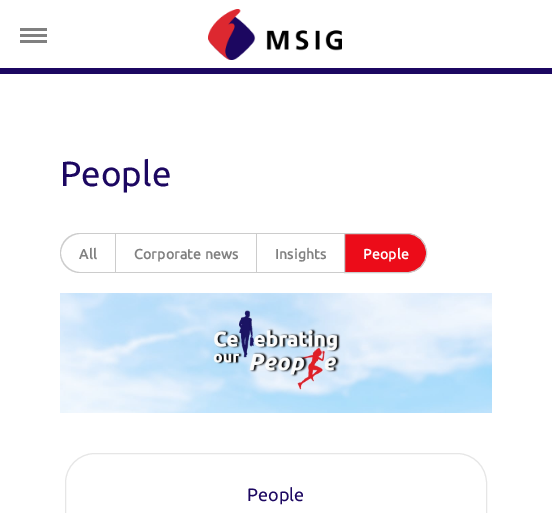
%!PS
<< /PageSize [552 513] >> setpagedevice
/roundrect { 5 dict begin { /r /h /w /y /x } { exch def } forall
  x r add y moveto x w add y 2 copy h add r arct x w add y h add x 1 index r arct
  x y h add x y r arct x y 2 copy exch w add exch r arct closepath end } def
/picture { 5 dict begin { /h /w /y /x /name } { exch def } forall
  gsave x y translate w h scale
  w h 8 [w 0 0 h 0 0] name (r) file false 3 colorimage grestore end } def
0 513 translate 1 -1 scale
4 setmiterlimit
1 setgray
0 0 552 513 rectfill
0.11 0.027 0.38 setrgbcolor
0 68 552 6 rectfill
0.502 setgray
20 34 27 3 rectfill
20 28 27 3 rectfill
20 40 27 3 rectfill
(img1.rgb) 208 9 134 51 picture
/Ubuntu-Regular [35 0 0 -35 0 0] selectfont
0.11 0.027 0.38 setrgbcolor
60 186 moveto (People) show
0.8 setgray
newpath 80 233 moveto 115 233 lineto 115 273 lineto 80 273 lineto 69 273 60 264 60 253 curveto 60 242 69 233 80 233 curveto closepath 80 234 moveto 115 234 lineto 115 272 lineto 80 272 lineto 70 272 61 263 61 253 curveto 61 243 70 234 80 234 curveto closepath eofill
/Ubuntu-Bold [14 0 0 -14 0 0] selectfont
0.502 setgray
79 259 moveto 0.25 0 (All) ashow
0.8 setgray
115 233 229 1 rectfill
115 272 229 1 rectfill
115 233 1 40 rectfill
0.502 setgray
134 259 moveto 0.25 0 (Corporate news) ashow
0.8 setgray
256 233 1 40 rectfill
0.502 setgray
275 259 moveto 0.25 0 (Insights) ashow
0.925 0.047 0.098 setrgbcolor
newpath 344.5 233.5 moveto 407 233.5 lineto 418 233.5 426.5 242 426.5 253 curveto 426.5 264 418 272.5 407 272.5 curveto 344.5 272.5 lineto closepath gsave fill grestore
0.8 setgray
stroke
1 setgray
363 259 moveto 0.25 0 (People) ashow
(img2.rgb) 60 293 432 120 picture
0.902 setgray
65.5 453.5 421 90 29.5 roundrect stroke
/Ubuntu-Regular [18 0 0 -18 0 0] selectfont
0.11 0.027 0.38 setrgbcolor
247 501 moveto (People) show
showpage
